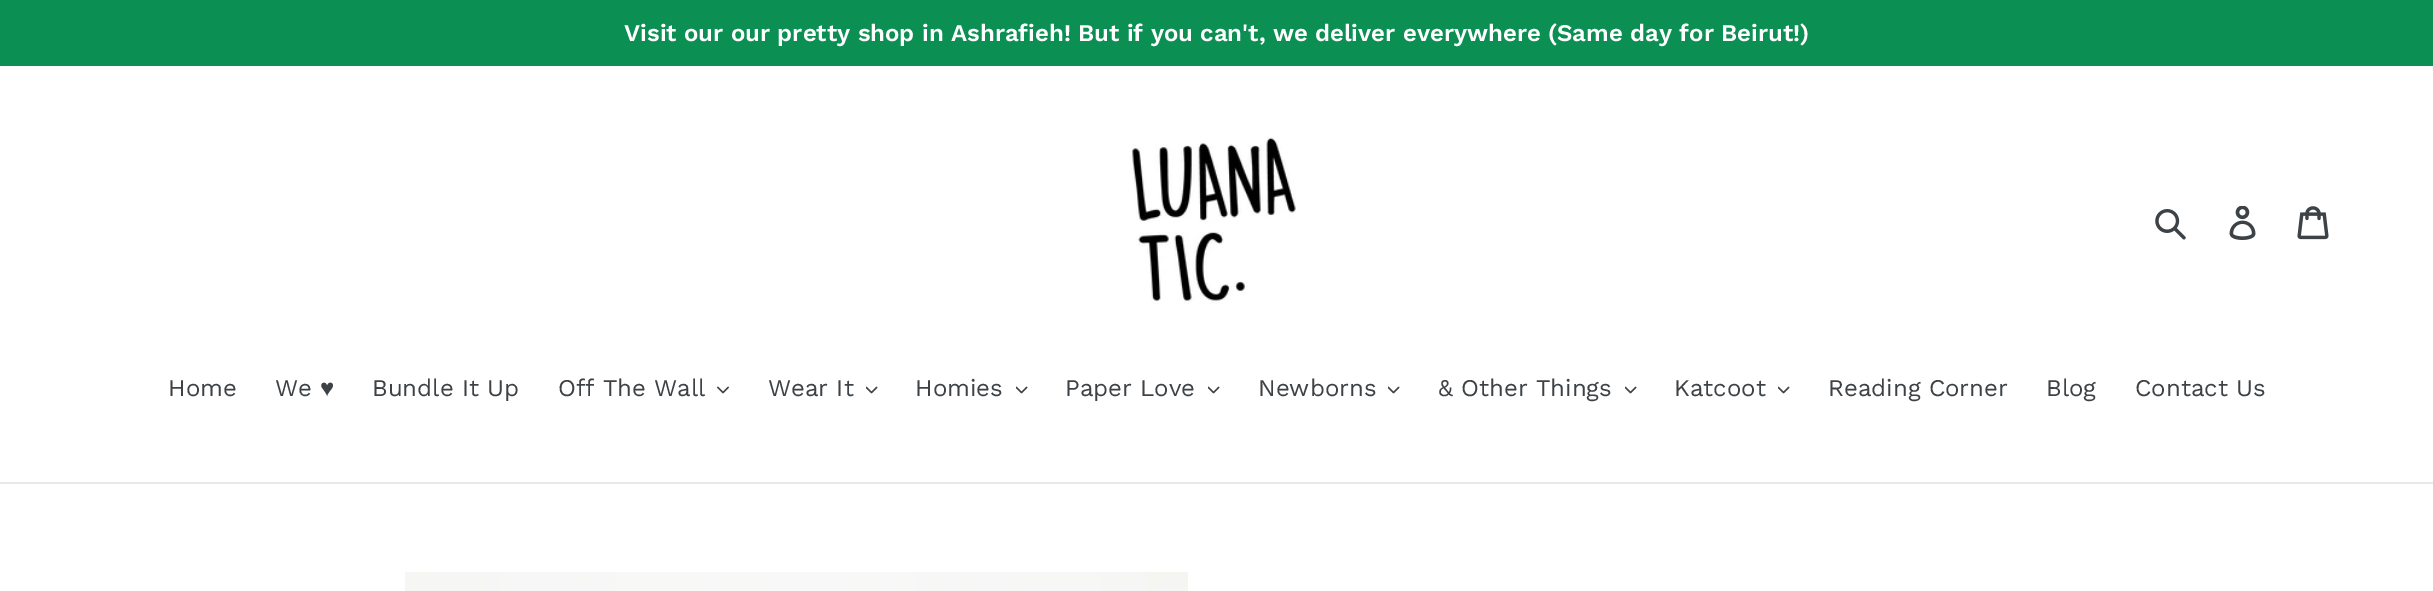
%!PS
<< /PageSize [2433 591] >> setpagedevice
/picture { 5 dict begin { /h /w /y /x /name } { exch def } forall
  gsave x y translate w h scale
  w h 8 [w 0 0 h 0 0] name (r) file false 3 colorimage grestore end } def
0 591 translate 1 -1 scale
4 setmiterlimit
1 setgray
0 0 2433 591 rectfill
0.043 0.561 0.322 setrgbcolor
0 0 2433 66 rectfill
/WorkSans-SemiBold [24 0 0 -24 0 0] selectfont
1 setgray
624 41 moveto (Visit our our pretty shop in Ashrafieh! But if you can't, we deliver everywhere \(Same day for Beirut!\)) show
(img1.rgb) 1130 137 166 167 picture
(img2.rgb) 2155 209 31 31 picture
(img3.rgb) 2229 206 27 34 picture
(img4.rgb) 2297 206 32 34 picture
0.91 0.914 0.922 setrgbcolor
0 482 2433 2 rectfill
/WorkSans-Regular [24 0 0 -24 0 0] selectfont
0.239 0.259 0.275 setrgbcolor
168 396 moveto (Home) show
275 396 moveto (We) show
/LiberationSans-Regular [24 0 0 -24 0 0] selectfont
320 396 moveto (♥) show
/WorkSans-Regular [24 0 0 -24 0 0] selectfont
372 396 moveto (Bundle It Up) show
558 396 moveto (Off The Wall) show
(img5.rgb) 717 386 12 8 picture
768 396 moveto (Wear It) show
(img6.rgb) 866 386 12 8 picture
915 396 moveto (Homies) show
(img6.rgb) 1016 386 12 8 picture
1065 396 moveto (Paper Love) show
(img6.rgb) 1208 386 12 8 picture
1258 396 moveto (Newborns) show
(img6.rgb) 1388 386 12 8 picture
1438 396 moveto (& Other Things) show
(img6.rgb) 1625 386 12 8 picture
1674 396 moveto (Katcoot) show
(img6.rgb) 1778 386 12 8 picture
1828 396 moveto (Reading Corner) show
2046 396 moveto (Blog) show
2135 396 moveto (Contact Us) show
(img7.rgb) 405 572 783 19 picture
showpage
